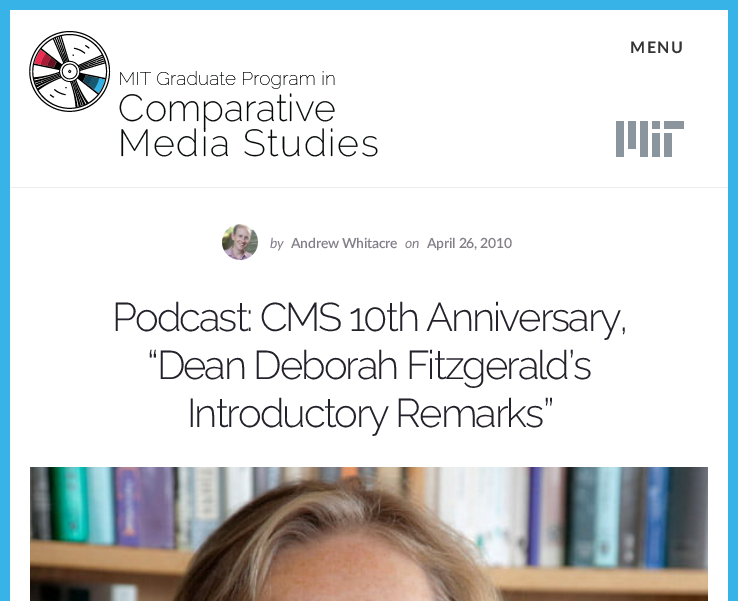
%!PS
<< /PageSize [738 601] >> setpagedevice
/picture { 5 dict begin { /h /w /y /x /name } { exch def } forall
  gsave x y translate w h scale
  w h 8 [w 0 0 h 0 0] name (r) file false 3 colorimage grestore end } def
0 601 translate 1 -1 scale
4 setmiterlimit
0.216 0.702 0.906 setrgbcolor
0 0 738 601 rectfill
1 setgray
10 10 718 591 rectfill
0.929 0.925 0.933 setrgbcolor
10 187 718 1 rectfill
(img1.rgb) 29 31 349 126 picture
/Lato-Bold [16 0 0 -16 0 0] selectfont
0.2 setgray
630 53 moveto 1.5 0 (MENU) ashow
(img2.rgb) 616 121 68 36 picture
(img3.rgb) 222 224 36 36 picture
/Lato-Italic [14 0 0 -14 0 0] selectfont
0.514 0.494 0.533 setrgbcolor
270 248 moveto -0.25 0 (by) ashow
/Lato-SemiBold [14 0 0 -14 0 0] selectfont
291 248 moveto -0.25 0 (Andrew Whitacre) ashow
/Lato-Italic [14 0 0 -14 0 0] selectfont
405 248 moveto -0.25 0 (on) ashow
/Lato-SemiBold [14 0 0 -14 0 0] selectfont
427 248 moveto -0.25 0 (April 26, 2010) ashow
/Raleway-Light [40 0 0 -40 0 0] selectfont
0.145 0.129 0.165 setrgbcolor
112 331 moveto -2 0 (Podcast: CMS 10th Anniversary,) ashow
147 379 moveto -2 0 (“Dean Deborah Fitzgerald’s) ashow
187 427 moveto -2 0 (Introductory Remarks”) ashow
(img4.rgb) 30 467 678 134 picture
showpage
